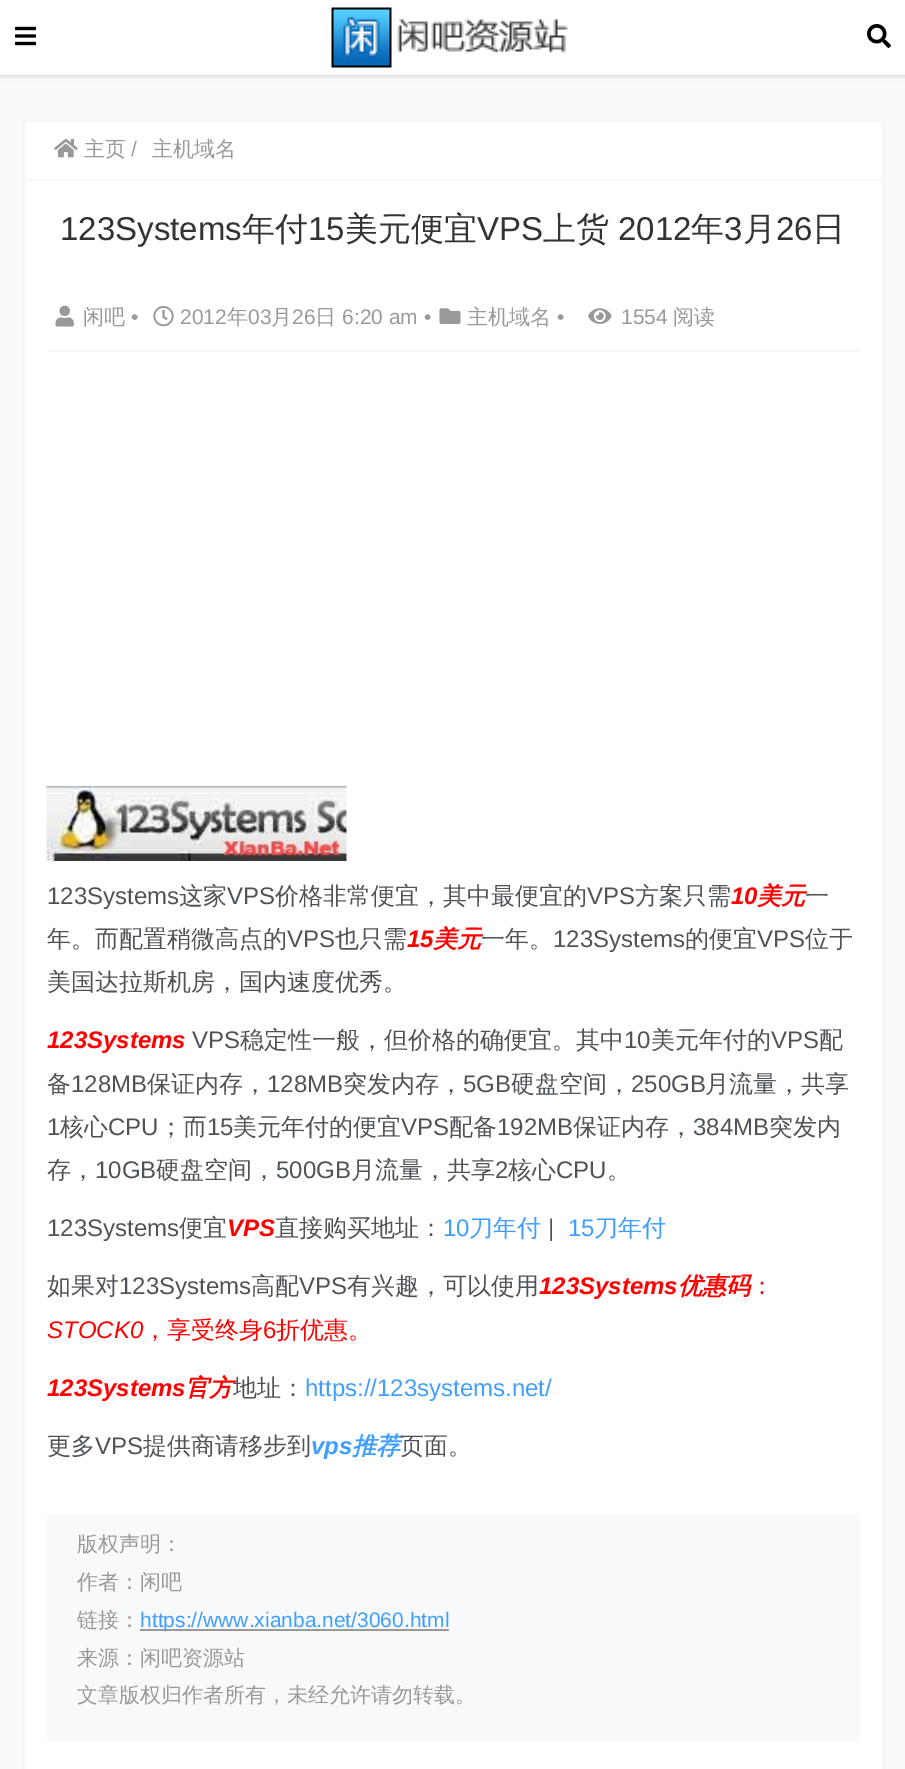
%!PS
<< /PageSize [905 1769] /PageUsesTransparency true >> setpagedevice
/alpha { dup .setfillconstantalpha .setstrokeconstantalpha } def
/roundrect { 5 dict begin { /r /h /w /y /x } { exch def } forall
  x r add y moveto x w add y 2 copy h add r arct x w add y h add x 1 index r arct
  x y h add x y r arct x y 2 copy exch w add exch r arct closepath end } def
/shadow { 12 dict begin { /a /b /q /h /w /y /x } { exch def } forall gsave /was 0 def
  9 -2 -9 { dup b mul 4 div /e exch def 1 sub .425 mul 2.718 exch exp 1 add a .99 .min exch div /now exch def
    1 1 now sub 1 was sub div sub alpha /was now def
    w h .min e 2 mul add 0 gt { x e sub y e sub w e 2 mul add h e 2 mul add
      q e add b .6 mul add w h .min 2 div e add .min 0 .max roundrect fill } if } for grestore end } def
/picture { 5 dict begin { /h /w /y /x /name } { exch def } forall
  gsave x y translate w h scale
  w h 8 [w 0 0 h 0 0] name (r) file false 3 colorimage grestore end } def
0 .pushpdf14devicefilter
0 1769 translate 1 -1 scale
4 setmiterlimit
0.969 0.976 0.98 setrgbcolor
0 0 905 1769 rectfill
0 setgray
-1 -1 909 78 0 2 0.1 shadow
1 setgray
0 0 905 75 rectfill
(img1.rgb) 15 26 21 20 picture
(img2.rgb) 331 7 237 61 picture
(img3.rgb) 867 24 24 24 picture
24 121 859 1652 2 roundrect gsave fill grestore
0.961 0.965 0.969 setrgbcolor
2 setlinewidth
stroke
0.969 setgray
24 179 858 2 rectfill
(img4.rgb) 54 138 24 20 picture
/WenQuanYiZenHei-Medium [21 0 0 -21 0 0] selectfont
0.6 setgray
84 156 moveto (主页) show
/LiberationSans-Regular [21 0 0 -21 0 0] selectfont
131 156 moveto (/) show
/WenQuanYiZenHei-Medium [21 0 0 -21 0 0] selectfont
152 156 moveto (主机域名) show
/LiberationSans-Regular [33 0 0 -33 0 0] selectfont
0.2 setgray
60 240 moveto (123Systems) show
/WenQuanYiZenHei-Medium [33 0 0 -33 0 0] selectfont
242 240 moveto (年付) show
/LiberationSans-Regular [33 0 0 -33 0 0] selectfont
308 240 moveto (15) show
/WenQuanYiZenHei-Medium [33 0 0 -33 0 0] selectfont
345 240 moveto (美元便宜) show
/LiberationSans-Regular [33 0 0 -33 0 0] selectfont
477 240 moveto (VPS) show
/WenQuanYiZenHei-Medium [33 0 0 -33 0 0] selectfont
543 240 moveto (上货) show
/LiberationSans-Regular [33 0 0 -33 0 0] selectfont
618 240 moveto (2012) show
/WenQuanYiZenHei-Medium [33 0 0 -33 0 0] selectfont
691 240 moveto (年) show
/LiberationSans-Regular [33 0 0 -33 0 0] selectfont
724 240 moveto (3) show
/WenQuanYiZenHei-Medium [33 0 0 -33 0 0] selectfont
743 240 moveto (月) show
/LiberationSans-Regular [33 0 0 -33 0 0] selectfont
776 240 moveto (26) show
/WenQuanYiZenHei-Medium [33 0 0 -33 0 0] selectfont
812 240 moveto (日) show
0.961 0.965 0.969 setrgbcolor
47 350 813 2 rectfill
(img5.rgb) 55 305 19 22 picture
/WenQuanYiZenHei-Medium [21 0 0 -21 0 0] selectfont
0.6 setgray
83 324 moveto (闲吧) show
/LiberationSans-Regular [21 0 0 -21 0 0] selectfont
131 324 moveto (•) show
(img6.rgb) 153 306 21 21 picture
180 324 moveto (2012) show
/WenQuanYiZenHei-Medium [21 0 0 -21 0 0] selectfont
227 324 moveto (年) show
/LiberationSans-Regular [21 0 0 -21 0 0] selectfont
248 324 moveto (03) show
/WenQuanYiZenHei-Medium [21 0 0 -21 0 0] selectfont
271 324 moveto (月) show
/LiberationSans-Regular [21 0 0 -21 0 0] selectfont
292 324 moveto (26) show
/WenQuanYiZenHei-Medium [21 0 0 -21 0 0] selectfont
315 324 moveto (日) show
/LiberationSans-Regular [21 0 0 -21 0 0] selectfont
342 324 moveto (6:20 am •) show
(img7.rgb) 439 308 22 16 picture
/WenQuanYiZenHei-Medium [21 0 0 -21 0 0] selectfont
467 324 moveto (主机域名) show
/LiberationSans-Regular [21 0 0 -21 0 0] selectfont
557 324 moveto (•) show
(img8.rgb) 588 308 24 16 picture
621 324 moveto (1554) show
/WenQuanYiZenHei-Medium [21 0 0 -21 0 0] selectfont
673 324 moveto (阅读) show
(img9.rgb) 46 786 301 75 picture
/LiberationSans-Regular [24 0 0 -24 0 0] selectfont
0.306 0.325 0.345 setrgbcolor
47 904 moveto (123Systems) show
/WenQuanYiZenHei-Medium [24 0 0 -24 0 0] selectfont
179 904 moveto (这家) show
/LiberationSans-Regular [24 0 0 -24 0 0] selectfont
227 904 moveto (VPS) show
/WenQuanYiZenHei-Medium [24 0 0 -24 0 0] selectfont
275 904 moveto (价格非常便宜，其中最便宜的) show
/LiberationSans-Regular [24 0 0 -24 0 0] selectfont
587 904 moveto (VPS) show
/WenQuanYiZenHei-Medium [24 0 0 -24 0 0] selectfont
635 904 moveto (方案只需) show
/LiberationSans-BoldItalic [24 0 0 -24 0 0] selectfont
1 0 0 setrgbcolor
731 904 moveto (10) show
/WenQuanYiZenHei-BoldItalic [24 0 0 -24 0 0] selectfont
757 904 moveto (美元) show
/WenQuanYiZenHei-Medium [24 0 0 -24 0 0] selectfont
0.306 0.325 0.345 setrgbcolor
805 904 moveto (一) show
47 947 moveto (年。而配置稍微高点的) show
/LiberationSans-Regular [24 0 0 -24 0 0] selectfont
287 947 moveto (VPS) show
/WenQuanYiZenHei-Medium [24 0 0 -24 0 0] selectfont
335 947 moveto (也只需) show
/LiberationSans-BoldItalic [24 0 0 -24 0 0] selectfont
1 0 0 setrgbcolor
407 947 moveto (15) show
/WenQuanYiZenHei-BoldItalic [24 0 0 -24 0 0] selectfont
433 947 moveto (美元) show
/WenQuanYiZenHei-Medium [24 0 0 -24 0 0] selectfont
0.306 0.325 0.345 setrgbcolor
481 947 moveto (一年。) show
/LiberationSans-Regular [24 0 0 -24 0 0] selectfont
553 947 moveto (123Systems) show
/WenQuanYiZenHei-Medium [24 0 0 -24 0 0] selectfont
685 947 moveto (的便宜) show
/LiberationSans-Regular [24 0 0 -24 0 0] selectfont
757 947 moveto (VPS) show
/WenQuanYiZenHei-Medium [24 0 0 -24 0 0] selectfont
805 947 moveto (位于) show
47 990 moveto (美国达拉斯机房，国内速度优秀。) show
/LiberationSans-BoldItalic [24 0 0 -24 0 0] selectfont
1 0 0 setrgbcolor
47 1048 moveto (123Systems) show
/LiberationSans-Regular [24 0 0 -24 0 0] selectfont
0.306 0.325 0.345 setrgbcolor
192 1048 moveto (VPS) show
/WenQuanYiZenHei-Medium [24 0 0 -24 0 0] selectfont
240 1048 moveto (稳定性一般，但价格的确便宜。其中) show
/LiberationSans-Regular [24 0 0 -24 0 0] selectfont
624 1048 moveto (10) show
/WenQuanYiZenHei-Medium [24 0 0 -24 0 0] selectfont
651 1048 moveto (美元年付的) show
/LiberationSans-Regular [24 0 0 -24 0 0] selectfont
771 1048 moveto (VPS) show
/WenQuanYiZenHei-Medium [24 0 0 -24 0 0] selectfont
819 1048 moveto (配) show
47 1092 moveto (备) show
/LiberationSans-Regular [24 0 0 -24 0 0] selectfont
71 1092 moveto (128MB) show
/WenQuanYiZenHei-Medium [24 0 0 -24 0 0] selectfont
147 1092 moveto (保证内存，) show
/LiberationSans-Regular [24 0 0 -24 0 0] selectfont
267 1092 moveto (128MB) show
/WenQuanYiZenHei-Medium [24 0 0 -24 0 0] selectfont
343 1092 moveto (突发内存，) show
/LiberationSans-Regular [24 0 0 -24 0 0] selectfont
463 1092 moveto (5GB) show
/WenQuanYiZenHei-Medium [24 0 0 -24 0 0] selectfont
511 1092 moveto (硬盘空间，) show
/LiberationSans-Regular [24 0 0 -24 0 0] selectfont
631 1092 moveto (250GB) show
/WenQuanYiZenHei-Medium [24 0 0 -24 0 0] selectfont
705 1092 moveto (月流量，共享) show
/LiberationSans-Regular [24 0 0 -24 0 0] selectfont
47 1135 moveto (1) show
/WenQuanYiZenHei-Medium [24 0 0 -24 0 0] selectfont
60 1135 moveto (核心) show
/LiberationSans-Regular [24 0 0 -24 0 0] selectfont
108 1135 moveto (CPU) show
/WenQuanYiZenHei-Medium [24 0 0 -24 0 0] selectfont
159 1135 moveto (；而) show
/LiberationSans-Regular [24 0 0 -24 0 0] selectfont
207 1135 moveto (15) show
/WenQuanYiZenHei-Medium [24 0 0 -24 0 0] selectfont
233 1135 moveto (美元年付的便宜) show
/LiberationSans-Regular [24 0 0 -24 0 0] selectfont
401 1135 moveto (VPS) show
/WenQuanYiZenHei-Medium [24 0 0 -24 0 0] selectfont
449 1135 moveto (配备) show
/LiberationSans-Regular [24 0 0 -24 0 0] selectfont
497 1135 moveto (192MB) show
/WenQuanYiZenHei-Medium [24 0 0 -24 0 0] selectfont
573 1135 moveto (保证内存，) show
/LiberationSans-Regular [24 0 0 -24 0 0] selectfont
693 1135 moveto (384MB) show
/WenQuanYiZenHei-Medium [24 0 0 -24 0 0] selectfont
769 1135 moveto (突发内) show
47 1178 moveto (存，) show
/LiberationSans-Regular [24 0 0 -24 0 0] selectfont
95 1178 moveto (10GB) show
/WenQuanYiZenHei-Medium [24 0 0 -24 0 0] selectfont
156 1178 moveto (硬盘空间，) show
/LiberationSans-Regular [24 0 0 -24 0 0] selectfont
276 1178 moveto (500GB) show
/WenQuanYiZenHei-Medium [24 0 0 -24 0 0] selectfont
351 1178 moveto (月流量，共享) show
/LiberationSans-Regular [24 0 0 -24 0 0] selectfont
495 1178 moveto (2) show
/WenQuanYiZenHei-Medium [24 0 0 -24 0 0] selectfont
508 1178 moveto (核心) show
/LiberationSans-Regular [24 0 0 -24 0 0] selectfont
556 1178 moveto (CPU) show
/WenQuanYiZenHei-Medium [24 0 0 -24 0 0] selectfont
607 1178 moveto (。) show
/LiberationSans-Regular [24 0 0 -24 0 0] selectfont
47 1236 moveto (123Systems) show
/WenQuanYiZenHei-Medium [24 0 0 -24 0 0] selectfont
179 1236 moveto (便宜) show
/LiberationSans-BoldItalic [24 0 0 -24 0 0] selectfont
1 0 0 setrgbcolor
227 1236 moveto (VPS) show
/WenQuanYiZenHei-Medium [24 0 0 -24 0 0] selectfont
0.306 0.325 0.345 setrgbcolor
275 1236 moveto (直接购买地址：) show
/LiberationSans-Regular [24 0 0 -24 0 0] selectfont
0.251 0.62 1 setrgbcolor
443 1236 moveto (10) show
/WenQuanYiZenHei-Medium [24 0 0 -24 0 0] selectfont
469 1236 moveto (刀年付) show
/LiberationSans-Regular [24 0 0 -24 0 0] selectfont
0.306 0.325 0.345 setrgbcolor
548 1236 moveto (|) show
0.251 0.62 1 setrgbcolor
568 1236 moveto (15) show
/WenQuanYiZenHei-Medium [24 0 0 -24 0 0] selectfont
594 1236 moveto (刀年付) show
0.306 0.325 0.345 setrgbcolor
47 1294 moveto (如果对) show
/LiberationSans-Regular [24 0 0 -24 0 0] selectfont
119 1294 moveto (123Systems) show
/WenQuanYiZenHei-Medium [24 0 0 -24 0 0] selectfont
251 1294 moveto (高配) show
/LiberationSans-Regular [24 0 0 -24 0 0] selectfont
299 1294 moveto (VPS) show
/WenQuanYiZenHei-Medium [24 0 0 -24 0 0] selectfont
347 1294 moveto (有兴趣，可以使用) show
/LiberationSans-BoldItalic [24 0 0 -24 0 0] selectfont
1 0 0 setrgbcolor
539 1294 moveto (123Systems) show
/WenQuanYiZenHei-BoldItalic [24 0 0 -24 0 0] selectfont
678 1294 moveto (优惠码) show
/WenQuanYiZenHei-Medium [24 0 0 -24 0 0] selectfont
750 1294 moveto (：) show
/LiberationSans-Italic [24 0 0 -24 0 0] selectfont
47 1338 moveto (STOCK0) show
/WenQuanYiZenHei-Medium [24 0 0 -24 0 0] selectfont
143 1338 moveto (，享受终身) show
/LiberationSans-Regular [24 0 0 -24 0 0] selectfont
263 1338 moveto (6) show
/WenQuanYiZenHei-Medium [24 0 0 -24 0 0] selectfont
276 1338 moveto (折优惠。) show
/LiberationSans-BoldItalic [24 0 0 -24 0 0] selectfont
47 1396 moveto (123Systems) show
/WenQuanYiZenHei-BoldItalic [24 0 0 -24 0 0] selectfont
185 1396 moveto (官方) show
/WenQuanYiZenHei-Medium [24 0 0 -24 0 0] selectfont
0.306 0.325 0.345 setrgbcolor
233 1396 moveto (地址：) show
/LiberationSans-Regular [24 0 0 -24 0 0] selectfont
0.251 0.62 1 setrgbcolor
305 1396 moveto (https://123systems.net/) show
/WenQuanYiZenHei-Medium [24 0 0 -24 0 0] selectfont
0.306 0.325 0.345 setrgbcolor
47 1454 moveto (更多) show
/LiberationSans-Regular [24 0 0 -24 0 0] selectfont
95 1454 moveto (VPS) show
/WenQuanYiZenHei-Medium [24 0 0 -24 0 0] selectfont
143 1454 moveto (提供商请移步到) show
/LiberationSans-BoldItalic [24 0 0 -24 0 0] selectfont
0.251 0.62 1 setrgbcolor
311 1454 moveto (vps) show
/WenQuanYiZenHei-BoldItalic [24 0 0 -24 0 0] selectfont
352 1454 moveto (推荐) show
/WenQuanYiZenHei-Medium [24 0 0 -24 0 0] selectfont
0.306 0.325 0.345 setrgbcolor
400 1454 moveto (页面。) show
0.969 0.976 0.98 setrgbcolor
47 1514 813 228 3 roundrect fill
/WenQuanYiZenHei-Medium [21 0 0 -21 0 0] selectfont
0.6 setgray
77 1551 moveto (版权声明：) show
77 1589 moveto (作者：闲吧) show
77 1627 moveto (链接：) show
140 1629 309 2 rectfill
/LiberationSans-Regular [21 0 0 -21 0 0] selectfont
0.251 0.62 1 setrgbcolor
140 1627 moveto (https://www.xianba.net/3060.html) show
/WenQuanYiZenHei-Medium [21 0 0 -21 0 0] selectfont
0.6 setgray
77 1665 moveto (来源：闲吧资源站) show
77 1702 moveto (文章版权归作者所有，未经允许请勿转载。) show
.poppdf14devicefilter showpage
